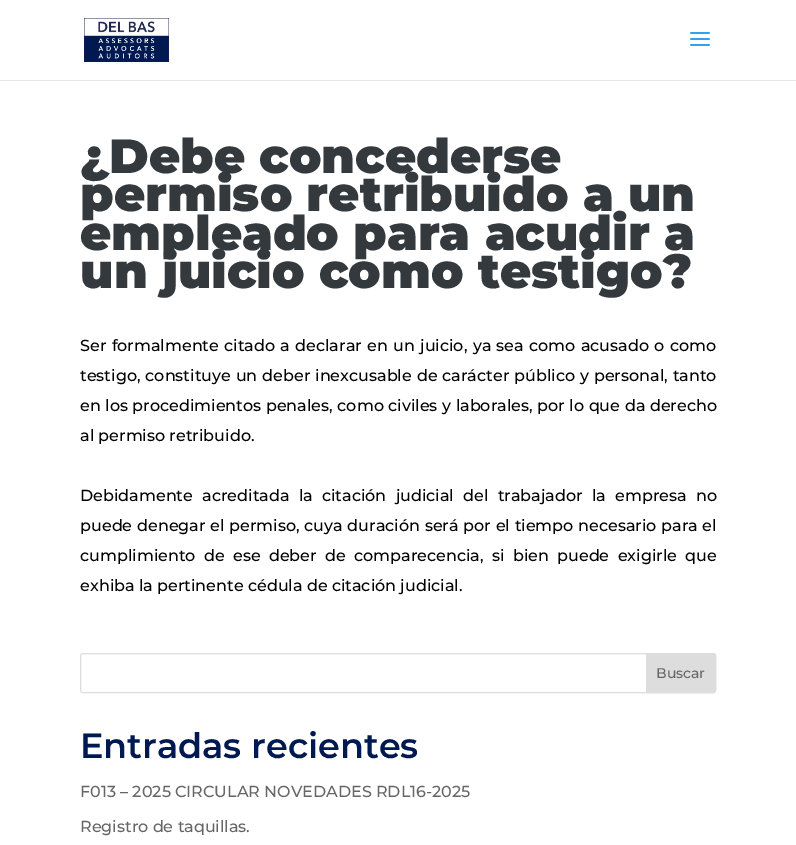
%!PS
<< /PageSize [796 845] >> setpagedevice
/roundrect { 5 dict begin { /r /h /w /y /x } { exch def } forall
  x r add y moveto x w add y 2 copy h add r arct x w add y h add x 1 index r arct
  x y h add x y r arct x y 2 copy exch w add exch r arct closepath end } def
/picture { 5 dict begin { /h /w /y /x /name } { exch def } forall
  gsave x y translate w h scale
  w h 8 [w 0 0 h 0 0] name (r) file false 3 colorimage grestore end } def
0 845 translate 1 -1 scale
4 setmiterlimit
1 setgray
0 0 796 845 rectfill
0.902 setgray
0 80 796 1 rectfill
(img1.rgb) 84 18 85 44 picture
(img2.rgb) 690 32 20 14 picture
/Montserrat-Black [48 0 0 -48 0 0] selectfont
0.204 0.224 0.243 setrgbcolor
80 173 moveto (¿Debe concederse) show
80 211 moveto (permiso retribuido a un) show
80 250 moveto (empleado para acudir a) show
80 288 moveto (un juicio como testigo?) show
/Montserrat-Medium [16 0 0 -16 0 0] selectfont
0 setgray
80 351 moveto 1 0 32 (Ser formalmente citado a declarar en un juicio, ya sea como acusado o como) widthshow
80 381 moveto 0.6 0 32 (testigo, constituye un deber inexcusable de carácter público y personal, tanto) widthshow
80 411 moveto 0.25 0 32 (en los procedimientos penales, como civiles y laborales, por lo que da derecho) widthshow
80 441 moveto (al permiso retribuido.) show
80 501 moveto 5 0 32 (Debidamente acreditada la citación judicial del trabajador la empresa no) widthshow
80 531 moveto 0.4 0 32 (puede denegar el permiso, cuya duración será por el tiempo necesario para el) widthshow
80 561 moveto 4 0 32 (cumplimiento de ese deber de comparecencia, si bien puede exigirle que) widthshow
80 591 moveto (exhiba la pertinente cédula de citación judicial.) show
0.867 setgray
80.5 653.5 635 39 2.5 roundrect stroke
newpath 646.5 653.5 moveto 713 653.5 lineto 714.5 653.5 715.5 654.5 715.5 656 curveto 715.5 690 lineto 715.5 691.5 714.5 692.5 713 692.5 curveto 646.5 692.5 lineto closepath gsave fill grestore
stroke
/Montserrat-Medium [14 0 0 -14 0 0] selectfont
0.4 setgray
656 678 moveto (Buscar) show
/Montserrat-SemiBold [35 0 0 -35 0 0] selectfont
0 0.098 0.318 setrgbcolor
80 758 moveto (Entradas recientes) show
/Montserrat-Medium [16 0 0 -16 0 0] selectfont
0.4 setgray
80 797 moveto (F013 – 2025 CIRCULAR NOVEDADES RDL16-2025) show
80 832 moveto (Registro de taquillas.) show
showpage
